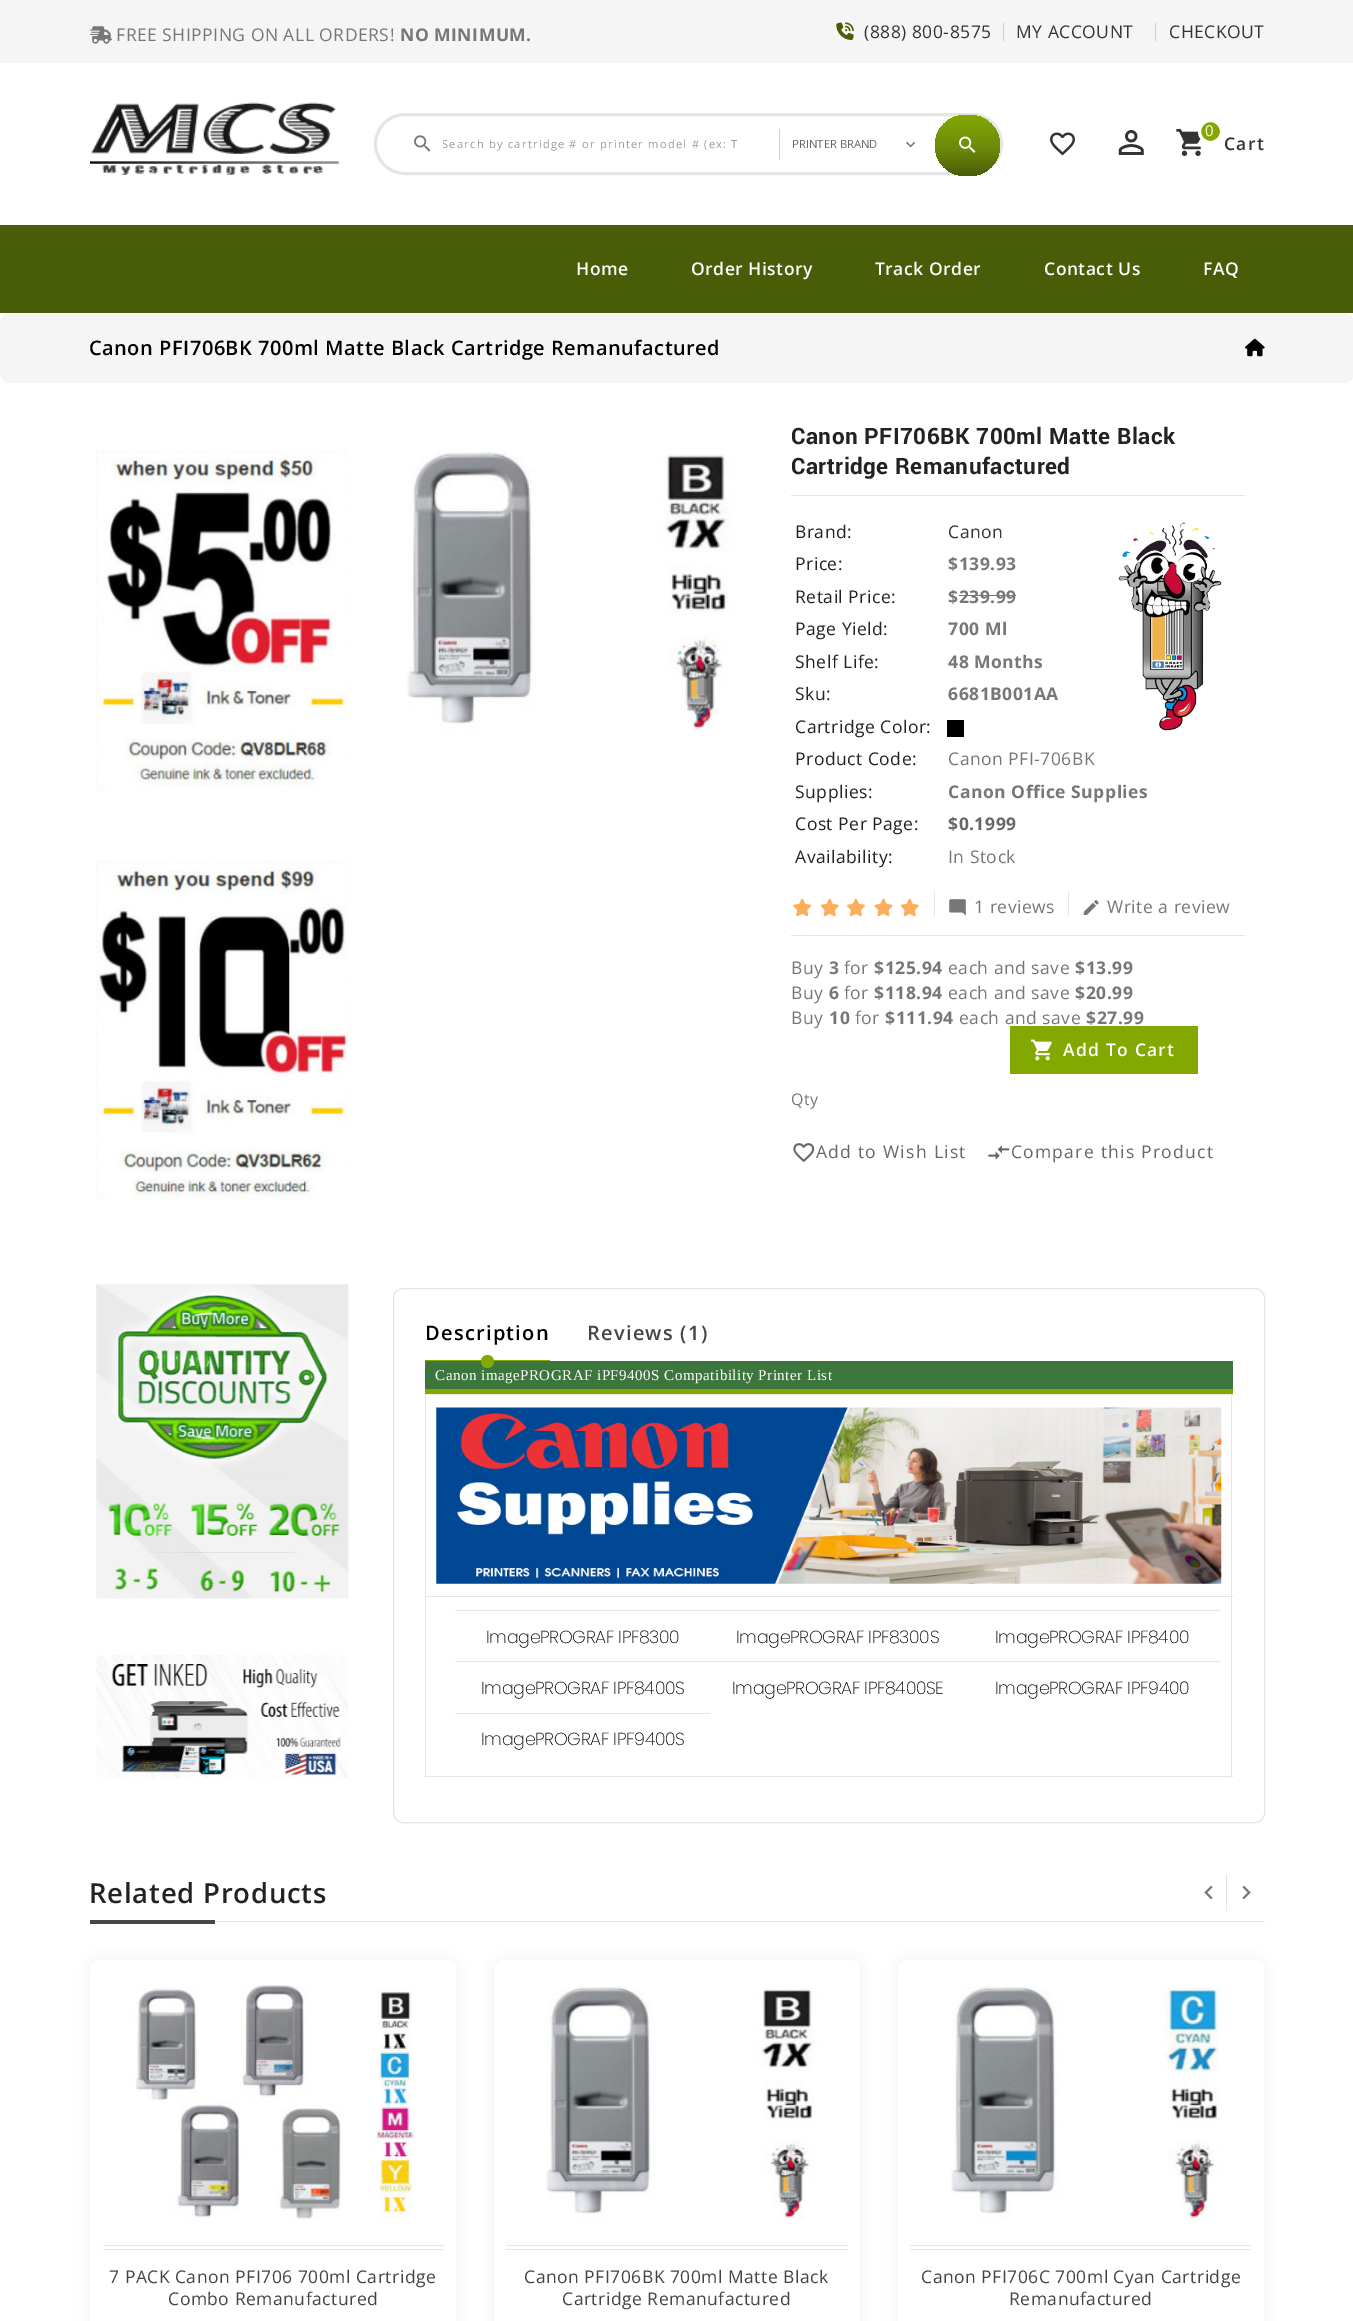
%!PS
<< /PageSize [1353 2321] /PageUsesTransparency true >> setpagedevice
/alpha { dup .setfillconstantalpha .setstrokeconstantalpha } def
/roundrect { 5 dict begin { /r /h /w /y /x } { exch def } forall
  x r add y moveto x w add y 2 copy h add r arct x w add y h add x 1 index r arct
  x y h add x y r arct x y 2 copy exch w add exch r arct closepath end } def
/shadow { 12 dict begin { /a /b /q /h /w /y /x } { exch def } forall gsave /was 0 def
  9 -2 -9 { dup b mul 4 div /e exch def 1 sub .425 mul 2.718 exch exp 1 add a .99 .min exch div /now exch def
    1 1 now sub 1 was sub div sub alpha /was now def
    w h .min e 2 mul add 0 gt { x e sub y e sub w e 2 mul add h e 2 mul add
      q e add b .6 mul add w h .min 2 div e add .min 0 .max roundrect fill } if } for grestore end } def
/picture { 5 dict begin { /h /w /y /x /name } { exch def } forall
  gsave x y translate w h scale
  w h 8 [w 0 0 h 0 0] name (r) file false 3 colorimage grestore end } def
0 .pushpdf14devicefilter
0 2321 translate 1 -1 scale
4 setmiterlimit
1 setgray
0 0 1353 2321 rectfill
0.961 setgray
0 0 1353 63 rectfill
(img1.rgb) 90 26 22 18 picture
/OpenSans-Regular [17.5 0 0 -17.5 0 0] selectfont
0.467 setgray
116 41 moveto 0.5 0 (FREE SHIPPING ON ALL ORDERS!) ashow
/OpenSans-Bold [17.5 0 0 -17.5 0 0] selectfont
400 41 moveto 0.5 0 (NO MINIMUM.) ashow
(img2.rgb) 836 22 18 18 picture
/OpenSans-Regular [17.5 0 0 -17.5 0 0] selectfont
0.2 setgray
864 38 moveto 0.5 0 (\(888\) 800-8575) ashow
0.804 setgray
1003 23 1 18 rectfill
0.2 setgray
1016 38 moveto 0.5 0 (MY ACCOUNT) ashow
0.804 setgray
1155 23 1 18 rectfill
0.2 setgray
1169 38 moveto 0.5 0 (CHECKOUT) ashow
(img3.rgb) 90 102 249 73 picture
0.898 setgray
3 setlinewidth
375.5 114.5 626 59 29.5 roundrect stroke
(img4.rgb) 414 135 17 17 picture
gsave
443 136 300 17 rectclip
/OpenSans-Regular [11.1 0 0 -11.1 0 0] selectfont
0.6 setgray
442 148 moveto 1.25 0 (Search by cartridge # or printer model # \(ex: T) ashow
grestore
0.812 setgray
779 129 1 31 rectfill
/OpenSans-Regular [11.25 0 0 -11.25 0 0] selectfont
0.4 setgray
792 148 moveto (PRINTER BRAND) show
(img5.rgb) 906 141 10 7 picture
gsave 935 115 65 61 30.5 roundrect clip newpath
<< /ShadingType 2 /ColorSpace /DeviceRGB /Coords [968 115 968 176] /Extend [true true] /Function << /FunctionType 3 /Domain [0 1] /Functions [<< /FunctionType 2 /Domain [0 1] /C0 [0.514 0.663 0] /C1 [0.424 0.537 0.043] /N 1 >> << /FunctionType 2 /Domain [0 1] /C0 [0.424 0.537 0.043] /C1 [0.286 0.361 0.027] /N 1 >>] /Bounds [0.56] /Encode [0 1 0 1] >> >> shfill grestore
(img6.rgb) 959 136 17 17 picture
(img7.rgb) 1050 132 25 24 picture
(img8.rgb) 1118 130 26 25 picture
(img9.rgb) 1176 129 25 27 picture
0.514 0.663 0 setrgbcolor
newpath 1210.5 131.5 11 0 360 arc closepath gsave fill grestore
1 setgray
stroke
/OpenSans-Regular [15 0 0 -15 0 0] selectfont
1205 136 moveto 1.25 0 (0) ashow
/OpenSans-SemiBold [17.5 0 0 -17.5 0 0] selectfont
0.2 setgray
1224 150 moveto 1.25 0 (Cart) ashow
0.286 0.361 0.027 setrgbcolor
0 225 1353 88 rectfill
1 setgray
576 275 moveto 0.5 0 (Home) ashow
691 275 moveto 0.5 0 (Order History) ashow
875 275 moveto 0.5 0 (Track Order) ashow
1044 275 moveto 0.5 0 (Contact Us) ashow
1203 275 moveto 0.5 0 (FAQ) ashow
0.961 setgray
0 313 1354 70 10 roundrect fill
/OpenSans-SemiBold [20 0 0 -20 0 0] selectfont
0 setgray
89 355 moveto 0.5 0 (Canon PFI706BK 700ml Matte Black Cartridge Remanufactured) ashow
(img10.rgb) 1245 338 20 19 picture
(img11.rgb) 96 450 252 342 picture
(img12.rgb) 96 860 252 341 picture
(img13.rgb) 96 1284 253 315 picture
(img14.rgb) 96 1655 252 124 picture
(img15.rgb) 407 452 326 280 picture
0.898 setgray
791 495 454 1 rectfill
/Roboto-Bold [22.5 0 0 -22.5 0 0] selectfont
0.133 setgray
791 444 moveto 0.5 0 (Canon PFI706BK 700ml Matte Black) ashow
791 474 moveto 0.5 0 (Cartridge Remanufactured) ashow
/OpenSans-Regular [17.5 0 0 -17.5 0 0] selectfont
795 538 moveto 0.5 0 (Brand:) ashow
0.2 setgray
948 538 moveto 0.5 0 (Canon) ashow
0.133 setgray
795 570 moveto 0.5 0 (Price:) ashow
/OpenSans-Bold [17.5 0 0 -17.5 0 0] selectfont
0.467 setgray
948 570 moveto 0.5 0 ($139.93) ashow
/OpenSans-Regular [17.5 0 0 -17.5 0 0] selectfont
0.133 setgray
795 603 moveto 0.5 0 (Retail Price:) ashow
/OpenSans-Bold [17.5 0 0 -17.5 0 0] selectfont
0.467 setgray
948 603 moveto 0.5 0 ($239.99) ashow
959 595 57 1 rectfill
/OpenSans-Regular [17.5 0 0 -17.5 0 0] selectfont
0.133 setgray
795 635 moveto 0.5 0 (Page Yield:) ashow
/OpenSans-Bold [17.5 0 0 -17.5 0 0] selectfont
0.467 setgray
948 635 moveto 0.5 0 (700 Ml) ashow
/OpenSans-Regular [17.5 0 0 -17.5 0 0] selectfont
0.133 setgray
795 668 moveto 0.5 0 (Shelf Life:) ashow
/OpenSans-Bold [17.5 0 0 -17.5 0 0] selectfont
0.467 setgray
948 668 moveto 0.5 0 (48 Months) ashow
/OpenSans-Regular [17.5 0 0 -17.5 0 0] selectfont
0.133 setgray
795 700 moveto 0.5 0 (Sku:) ashow
/OpenSans-Bold [17.5 0 0 -17.5 0 0] selectfont
0.467 setgray
948 700 moveto 0.5 0 (6681B001AA) ashow
/OpenSans-Regular [17.5 0 0 -17.5 0 0] selectfont
0.133 setgray
795 733 moveto 0.5 0 (Cartridge Color:) ashow
0 setgray
947 720 17 17 rectfill
0.133 setgray
795 765 moveto 0.5 0 (Product Code:) ashow
0.467 setgray
948 765 moveto 0.5 0 (Canon PFI-706BK) ashow
0.133 setgray
795 798 moveto 0.5 0 (Supplies:) ashow
/OpenSans-Bold [17.5 0 0 -17.5 0 0] selectfont
0.467 setgray
948 798 moveto 0.5 0 (Canon Office Supplies) ashow
/OpenSans-Regular [17.5 0 0 -17.5 0 0] selectfont
0.133 setgray
795 830 moveto 0.5 0 (Cost Per Page:) ashow
/OpenSans-Bold [17.5 0 0 -17.5 0 0] selectfont
0.4 setgray
948 830 moveto 0.5 0 ($0.1999) ashow
/OpenSans-Regular [17.5 0 0 -17.5 0 0] selectfont
0.133 setgray
795 863 moveto 0.5 0 (Availability:) ashow
0.467 setgray
948 863 moveto 0.5 0 (In Stock) ashow
(img16.rgb) 1118 522 104 209 picture
0.898 setgray
934 891 1 25 rectfill
(img17.rgb) 793 898 19 19 picture
(img18.rgb) 820 898 19 19 picture
(img19.rgb) 846 898 19 19 picture
(img20.rgb) 874 898 19 19 picture
(img18.rgb) 900 898 19 19 picture
1068 891 1 25 rectfill
(img21.rgb) 949 899 17 17 picture
0.467 setgray
974 913 moveto 0.5 0 (1 reviews) ashow
(img22.rgb) 1083 900 16 15 picture
1107 913 moveto 0.5 0 (Write a review) ashow
0.898 setgray
791 935 454 1 rectfill
0.467 setgray
791 974 moveto 0.5 0 (Buy) ashow
/OpenSans-Bold [17.5 0 0 -17.5 0 0] selectfont
829 974 moveto 0.5 0 (3) ashow
/OpenSans-Regular [17.5 0 0 -17.5 0 0] selectfont
844 974 moveto 0.5 0 (for) ashow
/OpenSans-Bold [17.5 0 0 -17.5 0 0] selectfont
874 974 moveto 0.5 0 ($125.94) ashow
/OpenSans-Regular [17.5 0 0 -17.5 0 0] selectfont
948 974 moveto 0.5 0 (each and save) ashow
/OpenSans-Bold [17.5 0 0 -17.5 0 0] selectfont
1075 974 moveto 0.5 0 ($13.99) ashow
/OpenSans-Regular [17.5 0 0 -17.5 0 0] selectfont
791 999 moveto 0.5 0 (Buy) ashow
/OpenSans-Bold [17.5 0 0 -17.5 0 0] selectfont
829 999 moveto 0.5 0 (6) ashow
/OpenSans-Regular [17.5 0 0 -17.5 0 0] selectfont
844 999 moveto 0.5 0 (for) ashow
/OpenSans-Bold [17.5 0 0 -17.5 0 0] selectfont
874 999 moveto 0.5 0 ($118.94) ashow
/OpenSans-Regular [17.5 0 0 -17.5 0 0] selectfont
948 999 moveto 0.5 0 (each and save) ashow
/OpenSans-Bold [17.5 0 0 -17.5 0 0] selectfont
1075 999 moveto 0.5 0 ($20.99) ashow
/OpenSans-Regular [17.5 0 0 -17.5 0 0] selectfont
791 1024 moveto 0.5 0 (Buy) ashow
/OpenSans-Bold [17.5 0 0 -17.5 0 0] selectfont
829 1024 moveto 0.5 0 (10) ashow
/OpenSans-Regular [17.5 0 0 -17.5 0 0] selectfont
855 1024 moveto 0.5 0 (for) ashow
/OpenSans-Bold [17.5 0 0 -17.5 0 0] selectfont
885 1024 moveto 0.5 0 ($111.94) ashow
/OpenSans-Regular [17.5 0 0 -17.5 0 0] selectfont
959 1024 moveto 0.5 0 (each and save) ashow
/OpenSans-Bold [17.5 0 0 -17.5 0 0] selectfont
1086 1024 moveto 0.5 0 ($27.99) ashow
0.514 0.663 0 setrgbcolor
1010 1026 188 48 rectfill
(img23.rgb) 1031 1039 21 22 picture
/OpenSans-SemiBold [17.5 0 0 -17.5 0 0] selectfont
1 setgray
1063 1056 moveto 1.25 0 (Add To Cart) ashow
/OpenSans-Regular [16 0 0 -16 0 0] selectfont
0.467 setgray
791 1105 moveto 0.5 0 (Qty) ashow
(img24.rgb) 793 1143 22 20 picture
/OpenSans-Regular [17.5 0 0 -17.5 0 0] selectfont
0.4 setgray
816 1158 moveto 1.25 0 (Add to Wish List) ashow
(img25.rgb) 988 1145 22 15 picture
1011 1158 moveto 1.25 0 (Compare this Product) ashow
0.898 setgray
1 setlinewidth
393.5 1288.5 871 534 9.5 roundrect stroke
/OpenSans-SemiBold [20 0 0 -20 0 0] selectfont
0 setgray
425 1340 moveto 1.25 0 (Description) ashow
0.514 0.663 0 setrgbcolor
425 1360 125 1 rectfill
0.235 0.463 0.239 setrgbcolor
425 1361 808 28 rectfill
0.514 0.663 0 setrgbcolor
newpath 487.5 1361.5 6.5 0 360 arc closepath fill
0.267 setgray
587 1340 moveto 1.25 0 (Reviews \(1\)) ashow
0.514 0.663 0 setrgbcolor
425 1389 808 5 rectfill
/LiberationSerif-Regular [15 0 0 -15 0 0] selectfont
1 setgray
435 1380 moveto 0.5 0 (Canon imagePROGRAF iPF9400S Compatibility Printer List) ashow
0.918 setgray
425 1394 808 1 rectfill
(img26.rgb) 436 1407 786 177 picture
0.898 setgray
425 1596 808 1 rectfill
1231 1394 1 384 rectfill
425 1776 808 1 rectfill
425 1394 1 384 rectfill
455 1610 765 1 rectfill
/Poppins-ExtraLight [17.5 0 0 -17.5 0 0] selectfont
0 setgray
486 1643 moveto -0.35 0 (ImagePROGRAF IPF8300) ashow
736 1643 moveto -0.35 0 (ImagePROGRAF IPF8300S) ashow
995 1643 moveto -0.35 0 (ImagePROGRAF IPF8400) ashow
0.898 setgray
455 1661 765 1 rectfill
0 setgray
481 1694 moveto -0.35 0 (ImagePROGRAF IPF8400S) ashow
732 1694 moveto -0.35 0 (ImagePROGRAF IPF8400SE) ashow
995 1694 moveto -0.35 0 (ImagePROGRAF IPF9400) ashow
0.898 setgray
455 1713 255 1 rectfill
0 setgray
481 1745 moveto -0.35 0 (ImagePROGRAF IPF9400S) ashow
0.898 setgray
215 1921 1050 1 rectfill
/OpenSans-SemiBold [27.5 0 0 -27.5 0 0] selectfont
0.133 setgray
89 1903 moveto 0.75 0 (Related Products) ashow
0.278 setgray
90 1920 125 4 rectfill
0.898 setgray
1226 1874 1 37 rectfill
(img27.rgb) 1204 1885 9 15 picture
(img28.rgb) 1242 1885 9 15 picture
0.933 setgray
90 1960 366 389 10 6 1 shadow
1 setgray
90 1960 366 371 10 roundrect fill
(img29.rgb) 134 1985 281 235 picture
0.898 setgray
103 2245 341 1 rectfill
103 2249 341 1 rectfill
/OpenSans-Regular [17.5 0 0 -17.5 0 0] selectfont
0.267 setgray
109 2283 moveto 0.5 0 (7 PACK Canon PFI706 700ml Cartridge) ashow
168 2305 moveto 0.5 0 (Combo Remanufactured) ashow
0.933 setgray
494 1960 366 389 10 6 1 shadow
1 setgray
494 1960 366 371 10 roundrect fill
(img30.rgb) 546 1987 272 233 picture
0.898 setgray
506 2245 342 1 rectfill
506 2249 342 1 rectfill
0.267 setgray
524 2283 moveto 0.5 0 (Canon PFI706BK 700ml Matte Black) ashow
562 2305 moveto 0.5 0 (Cartridge Remanufactured) ashow
0.933 setgray
898 1960 366 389 10 6 1 shadow
1 setgray
898 1960 366 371 10 roundrect fill
(img31.rgb) 951 1986 268 234 picture
0.898 setgray
910 2245 341 1 rectfill
910 2249 341 1 rectfill
0.267 setgray
921 2283 moveto 0.5 0 (Canon PFI706C 700ml Cyan Cartridge) ashow
1009 2305 moveto 0.5 0 (Remanufactured) ashow
.poppdf14devicefilter showpage
